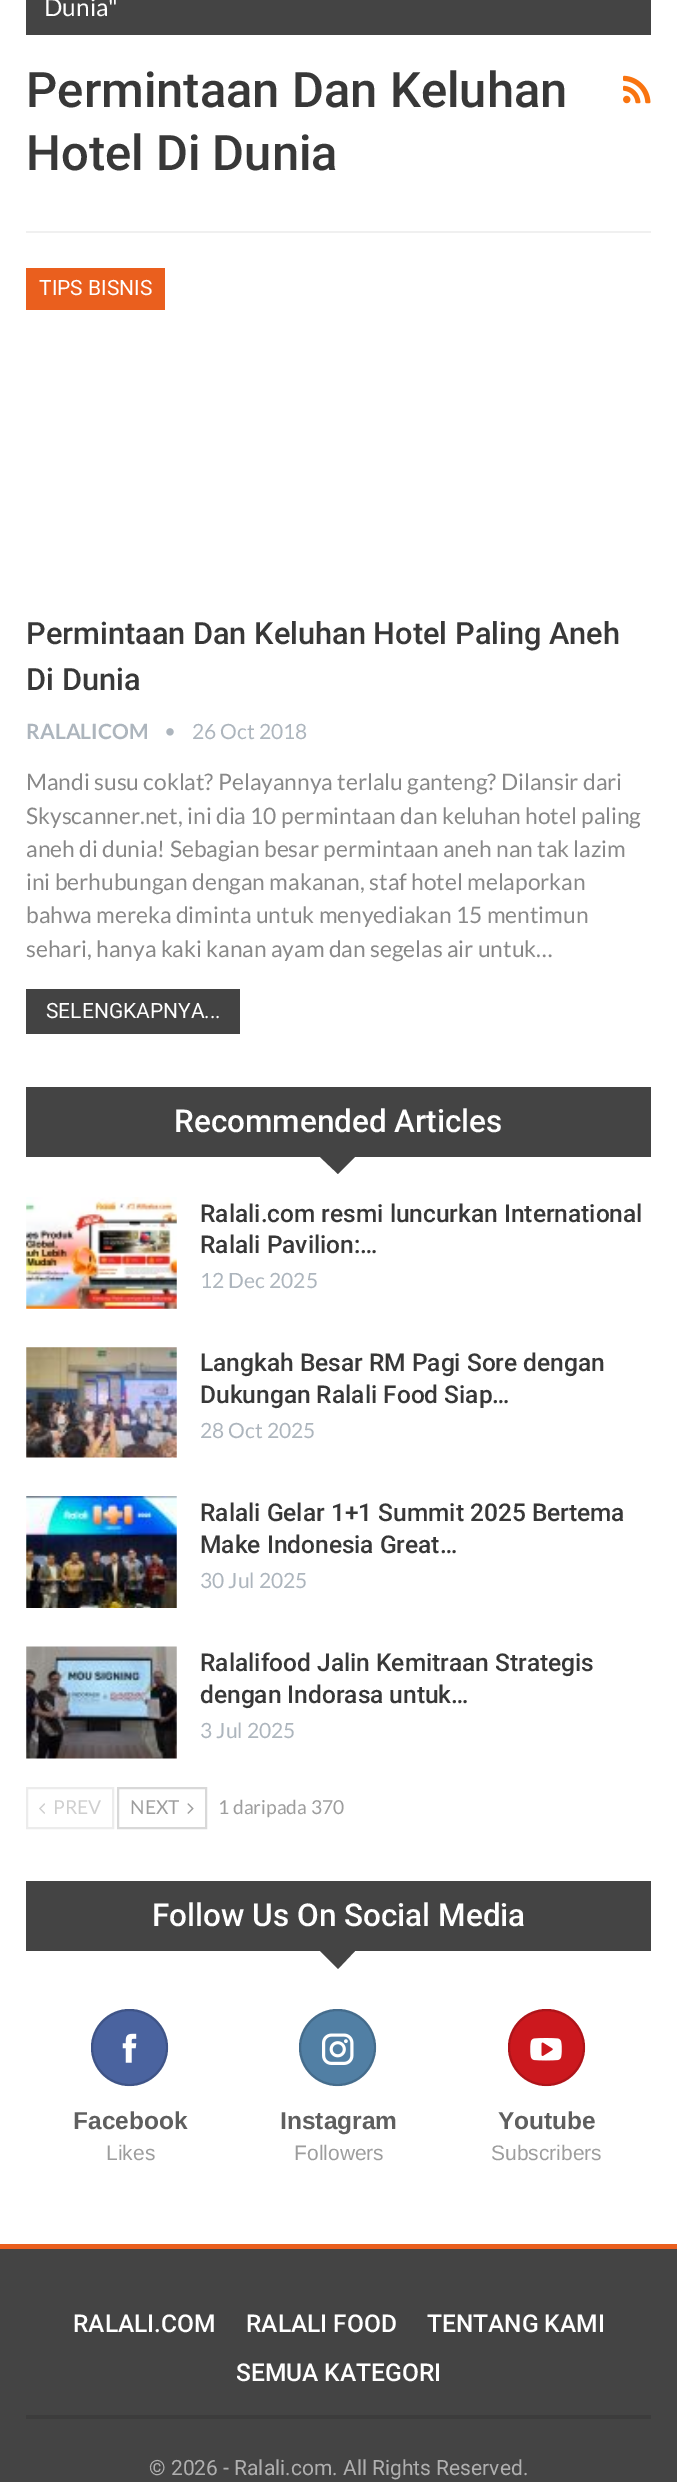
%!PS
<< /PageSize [677 2482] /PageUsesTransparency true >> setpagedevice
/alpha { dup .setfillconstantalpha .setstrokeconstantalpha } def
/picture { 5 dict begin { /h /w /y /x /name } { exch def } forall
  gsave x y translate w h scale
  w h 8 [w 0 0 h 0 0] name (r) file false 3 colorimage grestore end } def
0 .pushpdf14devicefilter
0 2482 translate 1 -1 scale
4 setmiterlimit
1 setgray
0 0 677 2482 rectfill
0.941 setgray
26 231 625 2 rectfill
0.267 setgray
26 0 625 35 rectfill
/Lato-Regular [24.5 0 0 -24.5 0 0] selectfont
1 setgray
44 16 moveto (Dunia") show
/Roboto-Medium [49 0 0 -49 0 0] selectfont
0.22 setgray
26 107 moveto (Permintaan Dan Keluhan) show
26 170 moveto (Hotel Di Dunia) show
(img1.rgb) 623 75 28 29 picture
0.918 0.373 0.118 setrgbcolor
26 268 139 42 rectfill
/Roboto-Regular [21 0 0 -21 0 0] selectfont
1 setgray
39 295 moveto (TIPS BISNIS) show
/Roboto-Medium [30.75 0 0 -30.75 0 0] selectfont
0.22 setgray
26 644 moveto (Permintaan Dan Keluhan Hotel Paling Aneh) show
26 690 moveto (Di Dunia) show
/Lato-Bold [21 0 0 -21 0 0] selectfont
0.678 0.71 0.741 setrgbcolor
26 739 moveto (RALALICOM) show
(img2.rgb) 166 728 8 8 picture
/Lato-Regular [21 0 0 -21 0 0] selectfont
192 739 moveto (26 Oct 2018) show
/Lato-Regular [22.75 0 0 -22.75 0 0] selectfont
0.533 setgray
26 790 moveto (Mandi susu coklat? Pelayannya terlalu ganteng? Dilansir dari) show
26 824 moveto (Skyscanner.net, ini dia 10 permintaan dan keluhan hotel paling) show
26 857 moveto (aneh di dunia! Sebagian besar permintaan aneh nan tak lazim) show
26 890 moveto (ini berhubungan dengan makanan, staf hotel melaporkan) show
26 923 moveto (bahwa mereka diminta untuk menyediakan 15 mentimun) show
26 957 moveto (sehari, hanya kaki kanan ayam dan segelas air untuk…) show
0.263 setgray
26 989 214 45 rectfill
/Roboto-Regular [21 0 0 -21 0 0] selectfont
1 setgray
46 1018 moveto (SELENGKAPNYA...) show
0.267 setgray
26 1087 625 70 rectfill
/Roboto-Medium [31.5 0 0 -31.5 0 0] selectfont
1 setgray
174 1132 moveto (Recommended Articles) show
0.267 setgray
newpath 320 1157 moveto 355 1157 lineto 338 1174 lineto closepath fill
(img3.rgb) 26 1197 151 112 picture
/Roboto-Medium [24.5 0 0 -24.5 0 0] selectfont
0.22 setgray
200 1222 moveto (Ralali.com resmi luncurkan International) show
200 1253 moveto (Ralali Pavilion:…) show
/Lato-Regular [21 0 0 -21 0 0] selectfont
0.678 0.71 0.741 setrgbcolor
200 1288 moveto (12 Dec 2025) show
(img4.rgb) 26 1347 151 111 picture
/Roboto-Medium [24.5 0 0 -24.5 0 0] selectfont
0.22 setgray
200 1371 moveto (Langkah Besar RM Pagi Sore dengan) show
200 1403 moveto (Dukungan Ralali Food Siap…) show
/Lato-Regular [21 0 0 -21 0 0] selectfont
0.678 0.71 0.741 setrgbcolor
200 1438 moveto (28 Oct 2025) show
(img5.rgb) 26 1496 151 112 picture
/Roboto-Medium [24.5 0 0 -24.5 0 0] selectfont
0.22 setgray
200 1521 moveto (Ralali Gelar 1+1 Summit 2025 Bertema) show
200 1553 moveto (Make Indonesia Great…) show
/Lato-Regular [21 0 0 -21 0 0] selectfont
0.678 0.71 0.741 setrgbcolor
200 1588 moveto (30 Jul 2025) show
(img6.rgb) 26 1646 151 113 picture
/Roboto-Medium [24.5 0 0 -24.5 0 0] selectfont
0.22 setgray
200 1671 moveto (Ralalifood Jalin Kemitraan Strategis) show
200 1703 moveto (dengan Indorasa untuk…) show
/Lato-Regular [21 0 0 -21 0 0] selectfont
0.678 0.71 0.741 setrgbcolor
200 1738 moveto (3 Jul 2025) show
0.925 setgray
2 setlinewidth
27 1788 86 40 rectstroke
(img7.rgb) 39 1803 6 11 picture
/Lato-Regular [19.25 0 0 -19.25 0 0] selectfont
0.812 setgray
53 1814 moveto (PREV) show
0.847 setgray
118 1788 88 40 rectstroke
0.616 setgray
130 1814 moveto (NEXT) show
(img8.rgb) 187 1803 7 11 picture
218 1814 moveto (1 daripada 370) show
0.267 setgray
26 1881 625 70 rectfill
/Roboto-Medium [31.5 0 0 -31.5 0 0] selectfont
1 setgray
152 1926 moveto (Follow Us On Social Media) show
0.267 setgray
newpath 320 1951 moveto 355 1951 lineto 338 1969 lineto closepath fill
0.29 0.388 0.624 setrgbcolor
newpath 129.5 2047.5 38.5 0 360 arc closepath fill
0.15 alpha
0 setgray
newpath 129.5 2047.5 37.5 0 360 arc closepath stroke
1 alpha
(img9.rgb) 122 2033 15 30 picture
/LiberationSans-Bold [24.5 0 0 -24.5 0 0] selectfont
0.373 setgray
73 2129 moveto (Facebook) show
/LiberationSans-Regular [21 0 0 -21 0 0] selectfont
0.616 setgray
106 2160 moveto (Likes) show
0.318 0.498 0.643 setrgbcolor
newpath 337.5 2047.5 38.5 0 360 arc closepath fill
0.15 alpha
0 setgray
newpath 337.5 2047.5 37.5 0 360 arc closepath stroke
1 alpha
(img10.rgb) 322 2033 32 32 picture
/LiberationSans-Bold [24.5 0 0 -24.5 0 0] selectfont
0.373 setgray
280 2129 moveto (Instagram) show
/LiberationSans-Regular [21 0 0 -21 0 0] selectfont
0.616 setgray
294 2160 moveto (Followers) show
0.8 0.094 0.118 setrgbcolor
newpath 546.5 2047.5 38.5 0 360 arc closepath fill
0.15 alpha
0 setgray
newpath 546.5 2047.5 37.5 0 360 arc closepath stroke
1 alpha
(img11.rgb) 530 2038 32 23 picture
/LiberationSans-Bold [24.5 0 0 -24.5 0 0] selectfont
0.373 setgray
498 2129 moveto (Youtube) show
/LiberationSans-Regular [21 0 0 -21 0 0] selectfont
0.616 setgray
491 2160 moveto (Subscribers) show
0.267 setgray
0 2249 677 233 rectfill
0.918 0.373 0.118 setrgbcolor
0 2244 677 5 rectfill
0.235 setgray
26 2415 625 4 rectfill
/Roboto-Medium [24.5 0 0 -24.5 0 0] selectfont
1 setgray
73 2332 moveto (RALALI.COM) show
246 2332 moveto (RALALI FOOD) show
427 2332 moveto (TENTANG KAMI) show
236 2381 moveto (SEMUA KATEGORI) show
/Roboto-Regular [21 0 0 -21 0 0] selectfont
0.686 setgray
149 2475 moveto (© 2026 - Ralali.com. All Rights Reserved.) show
.poppdf14devicefilter showpage
